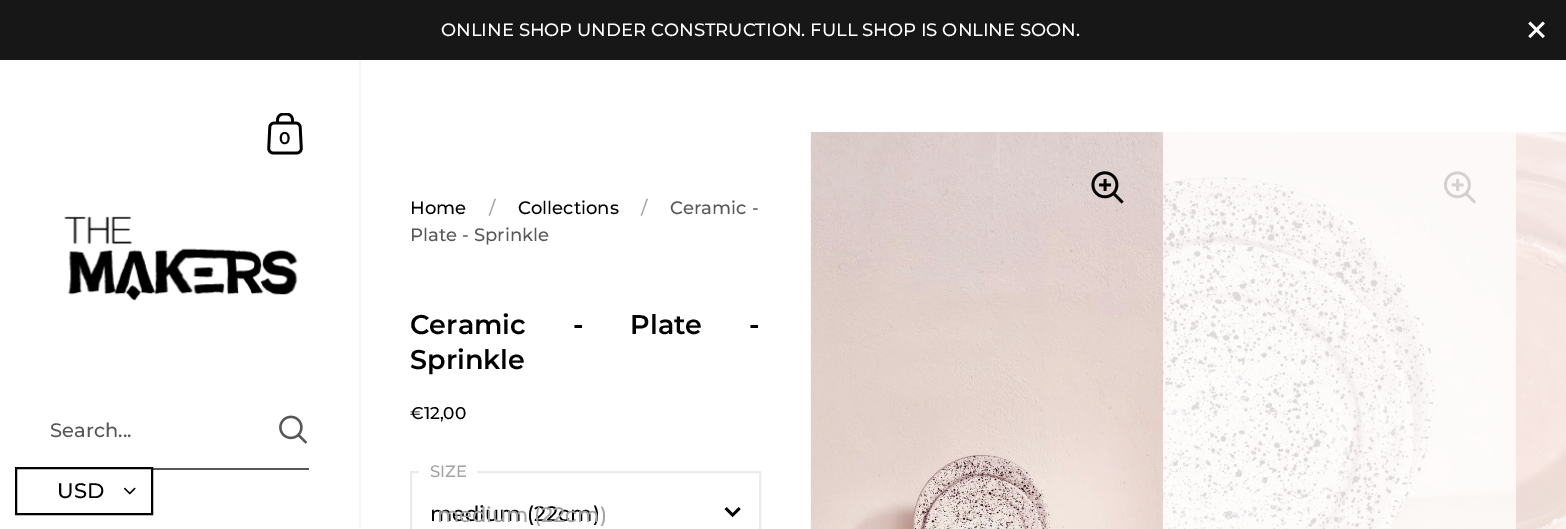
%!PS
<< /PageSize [1566 529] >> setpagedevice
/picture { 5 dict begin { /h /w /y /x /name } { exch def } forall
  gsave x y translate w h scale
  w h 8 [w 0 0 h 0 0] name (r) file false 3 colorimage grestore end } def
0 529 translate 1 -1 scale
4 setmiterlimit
1 setgray
0 0 1566 529 rectfill
0.09 setgray
0 0 1566 60 rectfill
/Montserrat-Medium [18 0 0 -18 0 0] selectfont
1 setgray
441 36 moveto (ONLINE SHOP UNDER CONSTRUCTION. FULL SHOP IS ONLINE SOON.) show
(img1.rgb) 1528 21 17 18 picture
0.961 setgray
359 60 2 469 rectfill
(img2.rgb) 267 113 36 42 picture
/Montserrat-SemiBold [17 0 0 -17 0 0] selectfont
0 setgray
279 144 moveto (0) show
(img3.rgb) 64 216 234 85 picture
0.341 setgray
153 468 156 2 rectfill
/Montserrat-Medium [19.5 0 0 -19.5 0 0] selectfont
50 437 moveto (Search...) show
(img4.rgb) 279 415 29 29 picture
/Montserrat-Medium [18 0 0 -18 0 0] selectfont
0 setgray
410 214 moveto (Home) show
0.639 setgray
489 214 moveto (/) show
0 setgray
518 214 moveto (Collections) show
0.639 setgray
641 214 moveto (/) show
0.341 setgray
670 214 moveto 1 0 32 (Ceramic -) widthshow
410 241 moveto (Plate - Sprinkle) show
/Montserrat-SemiBold [27 0 0 -27 0 0] selectfont
0 setgray
410 334 moveto 39.5 0 32 (Ceramic - Plate -) widthshow
410 369 moveto (Sprinkle) show
/Montserrat-Medium [17 0 0 -17 0 0] selectfont
410 419 moveto (€12,00) show
0.922 setgray
2 setlinewidth
411 472 349 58 rectstroke
1 setgray
419 471 58 2 rectfill
/Montserrat-Medium [16.5 0 0 -16.5 0 0] selectfont
0.639 setgray
430 477 moveto (SIZE) show
/Montserrat-Medium [21 0 0 -21 0 0] selectfont
0 setgray
430 521 moveto (medium \(22cm\)) show
0.639 setgray
437 522 moveto (medium \(22cm\)) show
(img5.rgb) 724 507 17 11 picture
0.969 setgray
810 132 1 397 rectfill
(img6.rgb) 811 132 352 397 picture
(img7.rgb) 1091 171 33 33 picture
(img8.rgb) 1163 132 353 397 picture
(img9.rgb) 1444 171 32 33 picture
(img10.rgb) 1516 132 50 397 picture
0 setgray
16 468 136 46 rectstroke
57 498 moveto (USD) show
(img11.rgb) 123 487 13 8 picture
showpage
